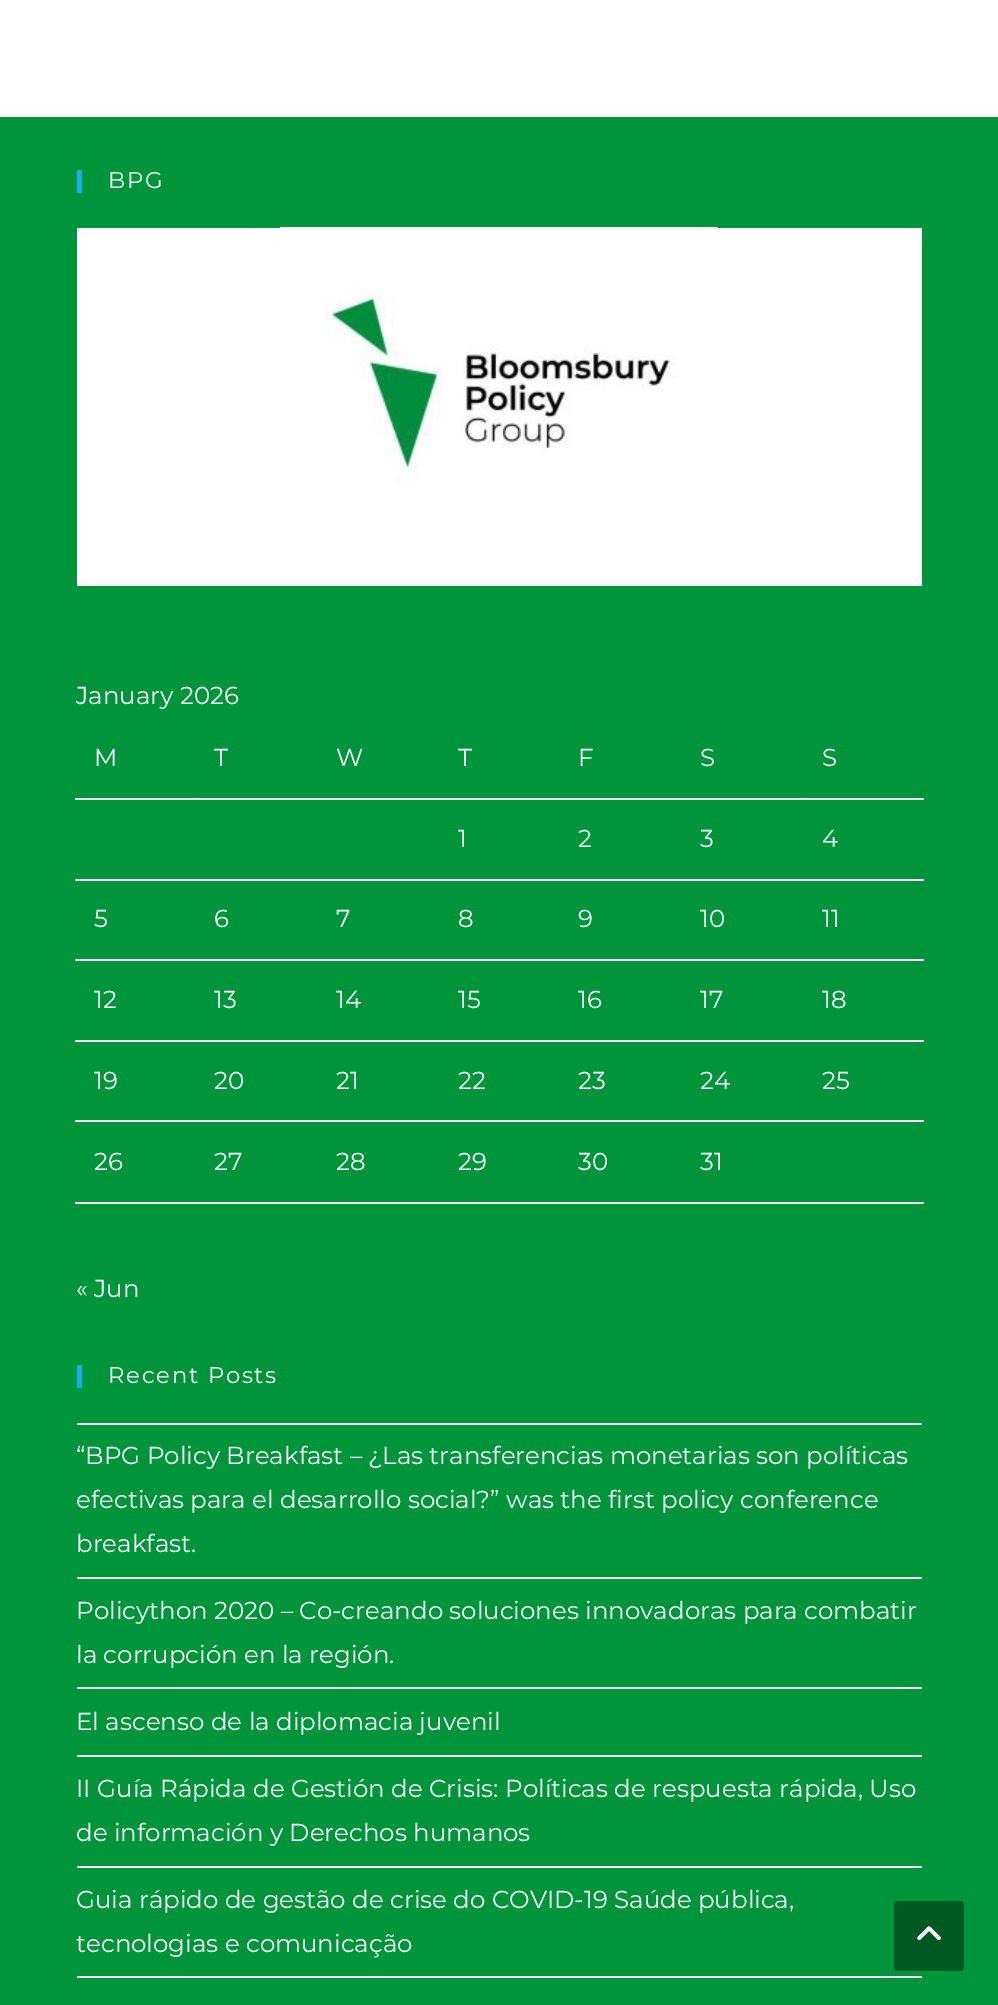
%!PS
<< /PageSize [998 2005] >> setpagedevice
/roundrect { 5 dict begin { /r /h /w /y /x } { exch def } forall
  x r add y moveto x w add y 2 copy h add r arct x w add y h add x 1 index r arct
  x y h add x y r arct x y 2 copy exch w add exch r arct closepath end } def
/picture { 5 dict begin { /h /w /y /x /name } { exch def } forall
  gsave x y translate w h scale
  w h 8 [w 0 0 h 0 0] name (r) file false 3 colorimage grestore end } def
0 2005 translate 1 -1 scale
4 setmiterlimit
1 setgray
0 0 998 2005 rectfill
0 0.584 0.231 setrgbcolor
0 117 998 1888 rectfill
0.961 0.984 0.969 setrgbcolor
75 798 849 2 rectfill
1 setgray
196 798 2 2 rectfill
319 798 1 2 rectfill
439 798 2 2 rectfill
560 798 2 2 rectfill
681 798 2 2 rectfill
0.075 0.686 0.941 setrgbcolor
77 170 5 23 rectfill
/Montserrat-Regular [22.75 0 0 -22.75 0 0] selectfont
1 setgray
108 188 moveto 1.75 0 (BPG) ashow
77 228 845 358 rectfill
(img1.rgb) 280 227 438 256 picture
/Montserrat-Regular [24.5 0 0 -24.5 0 0] selectfont
76 704 moveto (January 2026) show
94 766 moveto (M) show
214 766 moveto (T) show
336 766 moveto (W) show
458 766 moveto (T) show
578 766 moveto (F) show
700 766 moveto (S) show
803 798 2 2 rectfill
822 766 moveto (S) show
458 847 moveto (1) show
578 847 moveto (2) show
700 847 moveto (3) show
75 879 849 2 rectfill
822 847 moveto (4) show
94 927 moveto (5) show
214 927 moveto (6) show
336 927 moveto (7) show
458 927 moveto (8) show
578 927 moveto (9) show
700 927 moveto (10) show
75 959 849 2 rectfill
822 927 moveto (11) show
94 1008 moveto (12) show
214 1008 moveto (13) show
336 1008 moveto (14) show
458 1008 moveto (15) show
578 1008 moveto (16) show
700 1008 moveto (17) show
75 1040 849 2 rectfill
822 1008 moveto (18) show
94 1089 moveto (19) show
214 1089 moveto (20) show
336 1089 moveto (21) show
458 1089 moveto (22) show
578 1089 moveto (23) show
700 1089 moveto (24) show
75 1120 849 2 rectfill
822 1089 moveto (25) show
94 1170 moveto (26) show
214 1170 moveto (27) show
336 1170 moveto (28) show
458 1170 moveto (29) show
578 1170 moveto (30) show
700 1170 moveto (31) show
75 1202 849 2 rectfill
76 1297 moveto (« Jun) show
0.075 0.686 0.941 setrgbcolor
77 1365 5 23 rectfill
/Montserrat-Regular [22.75 0 0 -22.75 0 0] selectfont
1 setgray
108 1383 moveto 1.75 0 (Recent Posts) ashow
0.961 0.984 0.969 setrgbcolor
77 1423 845 2 rectfill
77 1577 845 2 rectfill
/Montserrat-Regular [24.5 0 0 -24.5 0 0] selectfont
1 setgray
76 1464 moveto (“BPG Policy Breakfast – ¿Las transferencias monetarias son políticas) show
76 1508 moveto (efectivas para el desarrollo social?” was the first policy conference) show
76 1552 moveto (breakfast.) show
0.961 0.984 0.969 setrgbcolor
77 1687 845 2 rectfill
1 setgray
76 1619 moveto (Policython 2020 – Co-creando soluciones innovadoras para combatir) show
76 1663 moveto (la corrupción en la región.) show
0.961 0.984 0.969 setrgbcolor
77 1755 845 2 rectfill
1 setgray
76 1730 moveto (El ascenso de la diplomacia juvenil) show
0.961 0.984 0.969 setrgbcolor
77 1866 845 2 rectfill
1 setgray
76 1797 moveto (II Guía Rápida de Gestión de Crisis: Políticas de respuesta rápida, Uso) show
76 1841 moveto (de información y Derechos humanos) show
0.961 0.984 0.969 setrgbcolor
77 1976 845 2 rectfill
1 setgray
76 1908 moveto (Guia rápido de gestão de crise do COVID-19 Saúde pública,) show
76 1952 moveto (tecnologias e comunicação) show
0 0.349 0.137 setrgbcolor
894 1901 70 70 4 roundrect fill
(img2.rgb) 917 1926 24 15 picture
showpage
